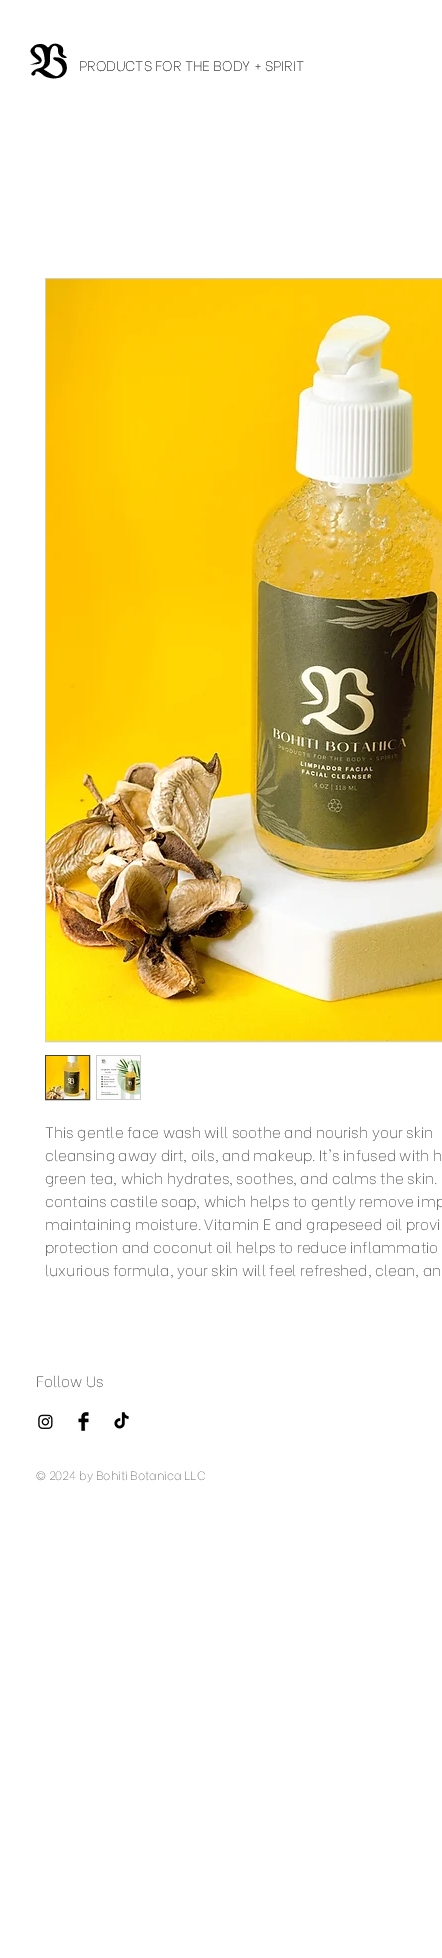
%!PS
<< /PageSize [442 1958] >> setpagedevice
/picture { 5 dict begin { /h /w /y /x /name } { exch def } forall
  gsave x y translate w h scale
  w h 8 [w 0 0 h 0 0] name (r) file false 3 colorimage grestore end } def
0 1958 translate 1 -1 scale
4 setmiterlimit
1 setgray
0 0 442 1958 rectfill
/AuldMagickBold-Bold [75 0 0 -75 0 0] selectfont
0 setgray
29 78 moveto (B) show
/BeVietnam-Thin [14 0 0 -14 0 0] selectfont
79 71 moveto (PRODUCTS FOR THE BODY + SPIRIT) show
0.808 0.808 0.812 setrgbcolor
45.5 278.5 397 763 rectstroke
(img1.rgb) 46 279 396 762 picture
0.251 0.251 0.255 setrgbcolor
45.5 1055.5 44 44 rectstroke
(img2.rgb) 46 1056 43 43 picture
0.808 0.808 0.812 setrgbcolor
96 1055 45 45 rectfill
(img3.rgb) 97 1056 43 43 picture
/BeVietnam-Thin [15 0 0 -15 0 0] selectfont
0.251 0.251 0.255 setrgbcolor
45 1138 moveto (This gentle face wash will soothe and nourish your skin) show
45 1161 moveto (cleansing away dirt, oils, and makeup. It's infused with h) show
45 1184 moveto (green tea, which hydrates, soothes, and calms the skin.) show
45 1207 moveto (contains castile soap, which helps to gently remove imp) show
45 1230 moveto (maintaining moisture. Vitamin E and grapeseed oil provi) show
45 1253 moveto (protection and coconut oil helps to reduce inflammatio) show
45 1276 moveto (luxurious formula, your skin will feel refreshed, clean, an) show
36 1387 moveto (Follow Us) show
(img4.rgb) 38 1414 15 15 picture
(img5.rgb) 78 1412 11 19 picture
(img6.rgb) 114 1412 15 17 picture
/BeVietnam-Thin [12 0 0 -12 0 0] selectfont
0.439 0.424 0.424 setrgbcolor
36 1480 moveto (© 2024 by Bohiti Botanica LLC) show
showpage
